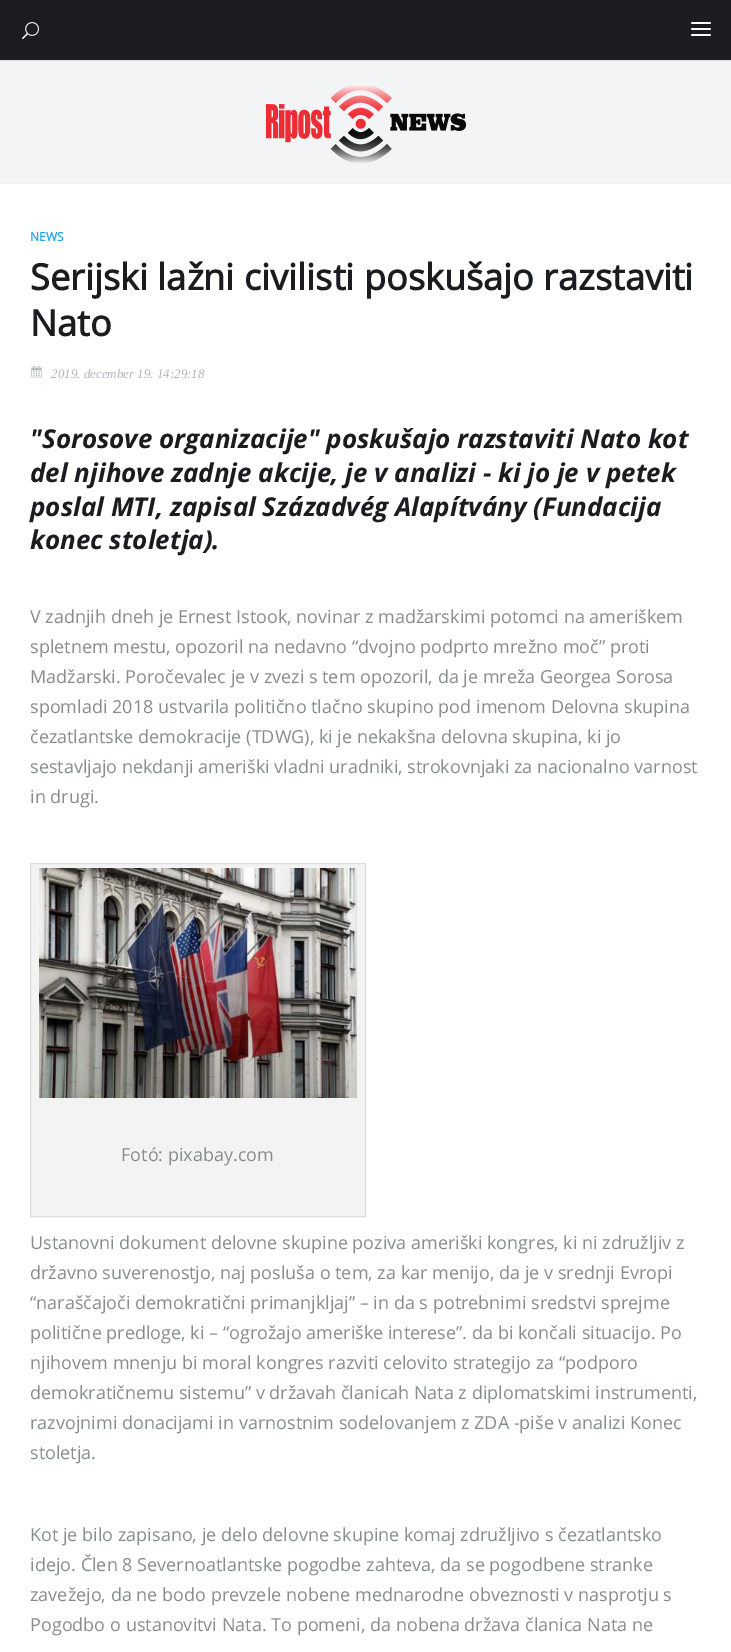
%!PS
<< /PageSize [731 1652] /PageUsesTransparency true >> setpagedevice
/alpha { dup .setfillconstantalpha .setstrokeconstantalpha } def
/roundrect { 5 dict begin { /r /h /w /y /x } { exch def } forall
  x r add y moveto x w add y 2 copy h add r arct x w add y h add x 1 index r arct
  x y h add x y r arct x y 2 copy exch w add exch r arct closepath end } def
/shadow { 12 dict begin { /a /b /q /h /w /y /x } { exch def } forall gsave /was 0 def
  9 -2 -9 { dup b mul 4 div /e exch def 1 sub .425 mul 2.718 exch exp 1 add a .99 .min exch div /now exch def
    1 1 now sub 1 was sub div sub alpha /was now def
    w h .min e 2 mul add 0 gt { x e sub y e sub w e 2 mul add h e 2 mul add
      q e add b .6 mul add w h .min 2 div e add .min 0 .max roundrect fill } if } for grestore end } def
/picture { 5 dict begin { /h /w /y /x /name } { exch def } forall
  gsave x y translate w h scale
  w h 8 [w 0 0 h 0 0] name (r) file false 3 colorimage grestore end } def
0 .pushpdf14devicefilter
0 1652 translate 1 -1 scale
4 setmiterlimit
0.949 0.957 0.961 setrgbcolor
0 0 731 1652 rectfill
0.855 0.863 0.867 setrgbcolor
0 60 731 1 rectfill
0.106 0.11 0.122 setrgbcolor
0 0 731 60 rectfill
(img1.rgb) 22 22 17 18 picture
(img2.rgb) 691 22 20 14 picture
(img3.rgb) 266 83 200 80 picture
0.871 0.882 0.89 setrgbcolor
0 185 731 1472 0 1.5 1 shadow
1 setgray
0 184 731 1468 rectfill
/OpenSans-Bold [12 0 0 -12 0 0] selectfont
0.122 0.655 0.902 setrgbcolor
30 241 moveto (NEWS) show
/OpenSans-Bold [36 0 0 -36 0 0] selectfont
0.106 0.11 0.122 setrgbcolor
30 290 moveto (Serijski lažni civilisti poskušajo razstaviti) show
30 336 moveto (Nato) show
(img4.rgb) 31 366 11 12 picture
/LiberationSerif-Italic [13 0 0 -13 0 0] selectfont
0.678 0.714 0.725 setrgbcolor
51 378 moveto (2019. december 19. 14:29:18) show
/OpenSans-BoldItalic [26 0 0 -26 0 0] selectfont
0.106 0.11 0.122 setrgbcolor
30 448 moveto ("Sorosove organizacije" poskušajo razstaviti Nato kot) show
30 482 moveto (del njihove zadnje akcije, je v analizi - ki jo je v petek) show
30 516 moveto (poslal MTI, zapisal Századvég Alapítvány \(Fundacija) show
30 549 moveto (konec stoletja\).) show
/OpenSans-Regular [18 0 0 -18 0 0] selectfont
0.529 0.549 0.557 setrgbcolor
30 623 moveto (V zadnjih dneh je Ernest Istook, novinar z madžarskimi potomci na ameriškem) show
30 653 moveto (spletnem mestu, opozoril na nedavno “dvojno podprto mrežno moč” proti) show
30 683 moveto (Madžarski. Poročevalec je v zvezi s tem opozoril, da je mreža Georgea Sorosa) show
30 713 moveto (spomladi 2018 ustvarila politično tlačno skupino pod imenom Delovna skupina) show
30 743 moveto (čezatlantske demokracije \(TDWG\), ki je nekakšna delovna skupina, ki jo) show
30 773 moveto (sestavljajo nekdanji ameriški vladni uradniki, strokovnjaki za nacionalno varnost) show
30 803 moveto (in drugi.) show
0.953 setgray
newpath 30.5 863.5 moveto 365.5 863.5 lineto 365.5 1216.5 lineto 30.5 1216.5 lineto closepath gsave fill grestore
0.867 setgray
stroke
(img5.rgb) 39 868 318 230 picture
0.529 0.549 0.557 setrgbcolor
121 1161 moveto (Fotó: pixabay.com) show
30 1249 moveto (Ustanovni dokument delovne skupine poziva ameriški kongres, ki ni združljiv z) show
30 1279 moveto (državno suverenostjo, naj posluša o tem, za kar menijo, da je v srednji Evropi) show
30 1309 moveto (“naraščajoči demokratični primanjkljaj” – in da s potrebnimi sredstvi sprejme) show
30 1339 moveto (politične predloge, ki – “ogrožajo ameriške interese”. da bi končali situacijo. Po) show
30 1369 moveto (njihovem mnenju bi moral kongres razviti celovito strategijo za “podporo) show
30 1399 moveto (demokratičnemu sistemu” v državah članicah Nata z diplomatskimi instrumenti,) show
30 1429 moveto (razvojnimi donacijami in varnostnim sodelovanjem z ZDA -piše v analizi Konec) show
30 1459 moveto (stoletja.) show
30 1541 moveto (Kot je bilo zapisano, je delo delovne skupine komaj združljivo s čezatlantsko) show
30 1571 moveto (idejo. Člen 8 Severnoatlantske pogodbe zahteva, da se pogodbene stranke) show
30 1601 moveto (zavežejo, da ne bodo prevzele nobene mednarodne obveznosti v nasprotju s) show
30 1631 moveto (Pogodbo o ustanovitvi Nata. To pomeni, da nobena država članica Nata ne) show
.poppdf14devicefilter showpage
